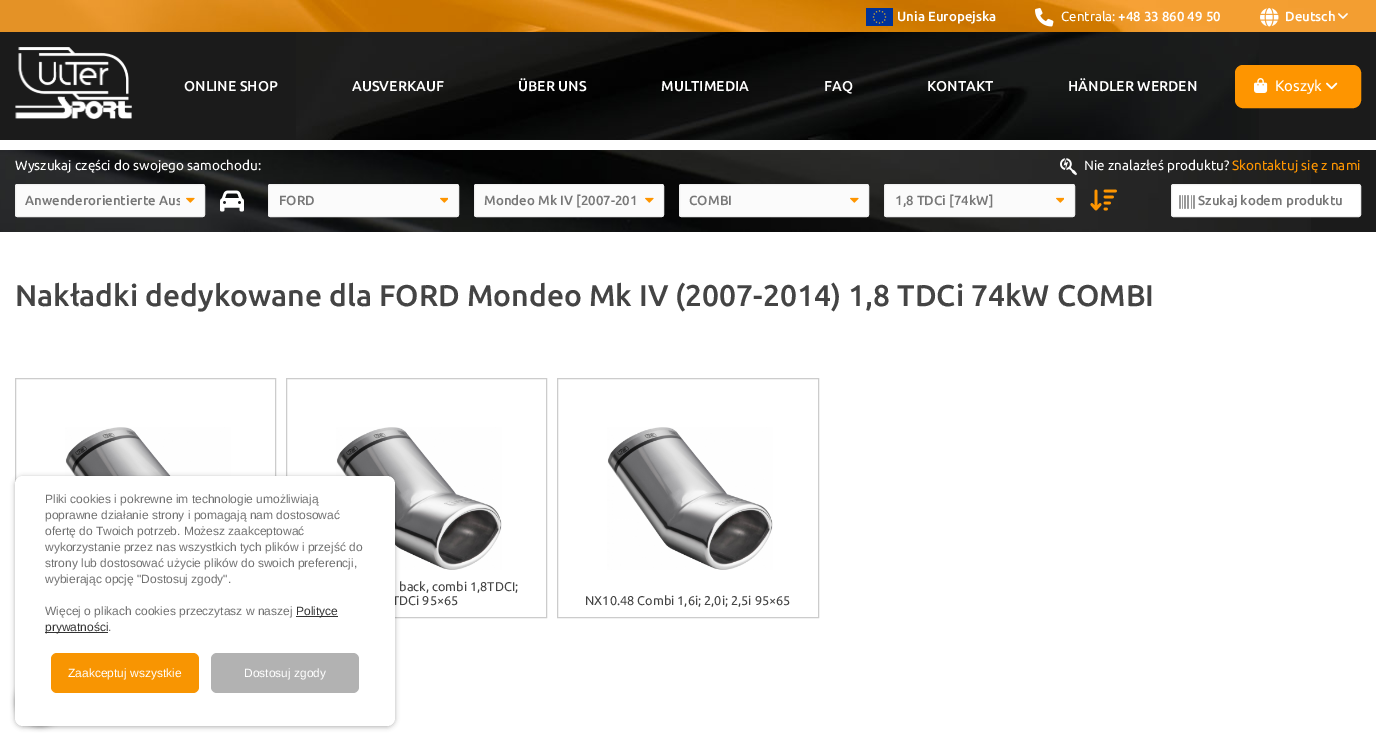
%!PS
<< /PageSize [1376 741] /PageUsesTransparency true >> setpagedevice
/alpha { dup .setfillconstantalpha .setstrokeconstantalpha } def
/roundrect { 5 dict begin { /r /h /w /y /x } { exch def } forall
  x r add y moveto x w add y 2 copy h add r arct x w add y h add x 1 index r arct
  x y h add x y r arct x y 2 copy exch w add exch r arct closepath end } def
/shadow { 12 dict begin { /a /b /q /h /w /y /x } { exch def } forall gsave /was 0 def
  9 -2 -9 { dup b mul 4 div /e exch def 1 sub .425 mul 2.718 exch exp 1 add a .99 .min exch div /now exch def
    1 1 now sub 1 was sub div sub alpha /was now def
    w h .min e 2 mul add 0 gt { x e sub y e sub w e 2 mul add h e 2 mul add
      q e add b .6 mul add w h .min 2 div e add .min 0 .max roundrect fill } if } for grestore end } def
/picture { 5 dict begin { /h /w /y /x /name } { exch def } forall
  gsave x y translate w h scale
  w h 8 [w 0 0 h 0 0] name (r) file false 3 colorimage grestore end } def
0 .pushpdf14devicefilter
0 741 translate 1 -1 scale
4 setmiterlimit
1 setgray
0 0 1376 741 rectfill
(img1.rgb) 0 0 1376 32 picture
(img2.rgb) 866 8 27 18 picture
/Ubuntu-Medium [13.25 0 0 -13.25 0 0] selectfont
897 21 moveto (Unia Europejska) show
(img3.rgb) 1035 8 19 19 picture
/Ubuntu-Regular [13.25 0 0 -13.25 0 0] selectfont
1061 21 moveto (Centrala:) show
/Ubuntu-Medium [13.25 0 0 -13.25 0 0] selectfont
1118 21 moveto (+48 33 860 49 50) show
(img4.rgb) 1260 8 19 19 picture
1285 21 moveto (Deutsch) show
(img5.rgb) 1338 13 10 6 picture
0.106 setgray
0 32 1376 108 rectfill
(img6.rgb) 296 32 963 108 picture
(img7.rgb) 15 47 117 72 picture
/Ubuntu-Medium [14.25 0 0 -14.25 0 0] selectfont
1 setgray
184 91 moveto (ONLINE SHOP) show
352 91 moveto (AUSVERKAUF) show
518 91 moveto (ÜBER UNS) show
661 91 moveto (MULTIMEDIA) show
824 91 moveto (FAQ) show
927 91 moveto (KONTAKT) show
1068 91 moveto (HÄNDLER WERDEN) show
0.996 0.584 0 setrgbcolor
1235.5 65.5 125 42 7.5 roundrect gsave fill grestore
stroke
(img8.rgb) 1254 78 14 15 picture
/Ubuntu-Regular [15 0 0 -15 0 0] selectfont
1 setgray
1275 91 moveto (Koszyk) show
(img9.rgb) 1326 82 12 8 picture
0.106 setgray
1311 150 65 82 rectfill
(img10.rgb) 0 150 1311 82 picture
/Ubuntu-Regular [13.5 0 0 -13.5 0 0] selectfont
1 setgray
15 170 moveto (Wyszukaj części do swojego samochodu:) show
(img11.rgb) 1060 158 17 18 picture
1084 170 moveto (Nie znalazłeś produktu?) show
0.996 0.584 0 setrgbcolor
1232 170 moveto (Skontaktuj się z nami) show
0.984 setgray
15 184 190 33 2.5 roundrect fill
(img12.rgb) 186 197 9 6 picture
0.937 setgray
15.5 184.5 189 32 2 roundrect stroke
gsave
25 192 155 17 rectclip
/Ubuntu-Medium [13.25 0 0 -13.25 0 0] selectfont
0.467 setgray
25 205 moveto (Anwenderorientierte Aus) show
grestore
(img13.rgb) 220 190 24 22 picture
0.984 setgray
268 184 191 33 2.5 roundrect fill
(img14.rgb) 440 197 8 6 picture
0.937 setgray
268.5 184.5 190 32 2 roundrect stroke
/Ubuntu-Medium [13.25 0 0 -13.25 0 0] selectfont
0.467 setgray
279 205 moveto (FORD) show
0.984 setgray
474 184 190 33 2.5 roundrect fill
(img12.rgb) 645 197 9 6 picture
0.937 setgray
474.5 184.5 189 32 2 roundrect stroke
0.467 setgray
484 205 moveto (Mondeo Mk IV [2007-201) show
0.984 setgray
679 184 190 33 2.5 roundrect fill
(img12.rgb) 850 197 9 6 picture
0.937 setgray
679.5 184.5 189 32 2 roundrect stroke
0.467 setgray
689 205 moveto (COMBI) show
0.984 setgray
884 184 191 33 2.5 roundrect fill
(img14.rgb) 1056 197 8 6 picture
0.937 setgray
884.5 184.5 190 32 2 roundrect stroke
0.467 setgray
895 205 moveto (1,8 TDCi [74kW]) show
(img15.rgb) 1090 189 27 22 picture
1 setgray
1171.5 184.5 189 32 2 roundrect gsave fill grestore
0.937 setgray
stroke
(img16.rgb) 1179 195 16 14 picture
0.467 setgray
1198 205 moveto (Szukaj kodem produktu) show
/Ubuntu-Medium [30 0 0 -30 0 0] selectfont
0.267 setgray
15 306 moveto (Nakładki dedykowane dla FORD Mondeo Mk IV \(2007-2014\) 1,8 TDCi 74kW COMBI) show
0.8 setgray
15.5 378.5 260 239 rectstroke
(img17.rgb) 65 427 166 49 picture
286.5 378.5 260 239 rectstroke
(img18.rgb) 336 427 166 143 picture
/Ubuntu-Regular [12.75 0 0 -12.75 0 0] selectfont
0.267 setgray
399 591 moveto (back, combi 1,8TDCI;) show
392 605 moveto (TDCi 95×65) show
0.8 setgray
557.5 378.5 261 239 rectstroke
(img18.rgb) 607 427 166 143 picture
0.267 setgray
585 605 moveto (NX10.48 Combi 1,6i; 2,0i; 2,5i 95×65) show
0 setgray
15 477 380 250 8 2.5 0.3 shadow
15 677 50 50 25 2.5 0.3 shadow
1 setgray
15 476 380 250 8 roundrect fill
/LiberationSans-Regular [12 0 0 -12 0 0] selectfont
0.439 setgray
45 503 moveto (Pliki cookies i pokrewne im technologie umożliwiają) show
45 519 moveto (poprawne działanie strony i pomagają nam dostosować) show
45 535 moveto (ofertę do Twoich potrzeb. Możesz zaakceptować) show
45 551 moveto (wykorzystanie przez nas wszystkich tych plików i przejść do) show
45 567 moveto (strony lub dostosować użycie plików do swoich preferencji,) show
45 583 moveto (wybierając opcję "Dostosuj zgody".) show
45 615 moveto (Więcej o plikach cookies przeczytasz w naszej) show
0.2 setgray
296 616 42 1 rectfill
296 615 moveto (Polityce) show
45 632 63 1 rectfill
45 631 moveto (prywatności) show
0.439 setgray
108 631 moveto (.) show
0.973 0.584 0.008 setrgbcolor
51 653 148 40 6 roundrect fill
1 setgray
68 677 moveto (Zaakceptuj wszystkie) show
0.698 setgray
211 653 148 40 6 roundrect fill
1 setgray
244 677 moveto (Dostosuj zgody) show
.poppdf14devicefilter showpage
